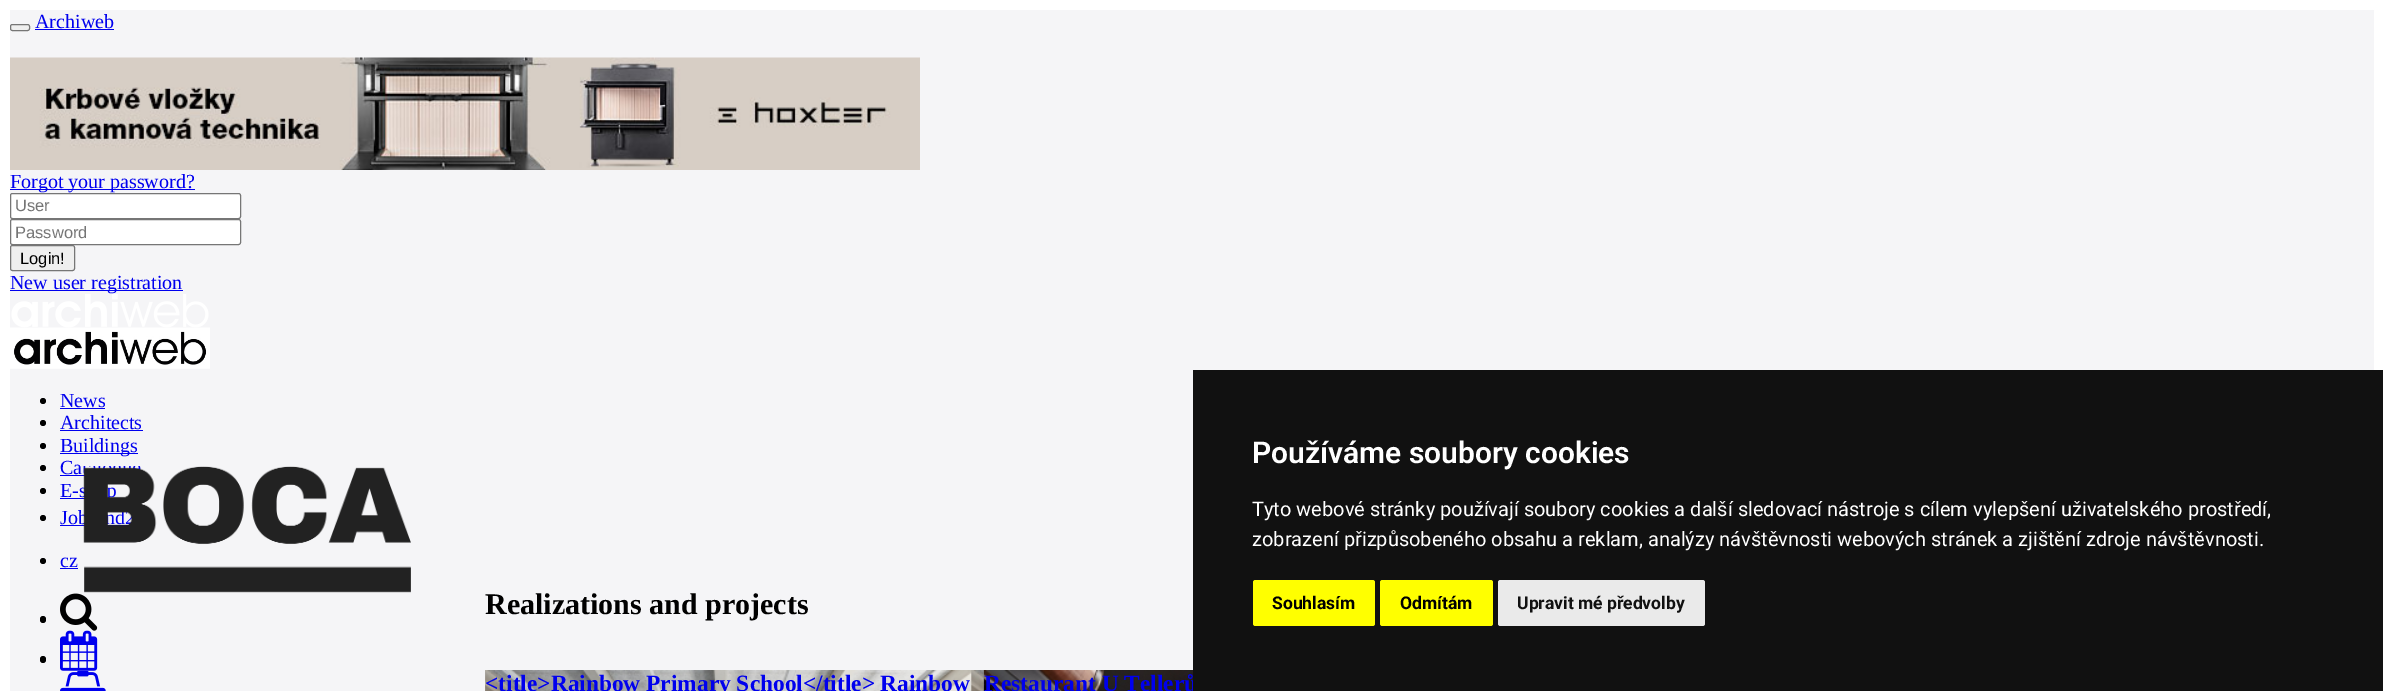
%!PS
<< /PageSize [2383 691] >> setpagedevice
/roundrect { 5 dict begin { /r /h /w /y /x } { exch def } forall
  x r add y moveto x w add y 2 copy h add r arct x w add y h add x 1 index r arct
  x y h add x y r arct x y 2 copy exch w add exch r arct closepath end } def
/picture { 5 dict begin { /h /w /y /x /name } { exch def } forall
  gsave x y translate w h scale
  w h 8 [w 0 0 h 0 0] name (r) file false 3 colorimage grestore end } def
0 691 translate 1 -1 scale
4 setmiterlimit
1 setgray
0 0 2383 691 rectfill
0.961 0.961 0.969 setrgbcolor
10 10 2364 681 rectfill
0.937 setgray
10.5 24.5 19 6 2 roundrect gsave fill grestore
0.463 setgray
stroke
/LiberationSerif-Regular [20 0 0 -20 0 0] selectfont
0 0 0.933 setrgbcolor
35 28 moveto (Archiweb) show
35 29 79 1 rectfill
(img1.rgb) 10 57 910 113 picture
10 189 185 1 rectfill
10 188 moveto (Forgot your password?) show
1 setgray
10.5 193.5 230 25 2 roundrect gsave fill grestore
0.463 setgray
stroke
/LiberationSans-Regular [16.5 0 0 -16.5 0 0] selectfont
0.459 setgray
15 211 moveto (User) show
1 setgray
10.5 219.5 230 25 2 roundrect gsave fill grestore
0.463 setgray
stroke
0.459 setgray
15 238 moveto (Password) show
0.937 setgray
10.5 245.5 64 25 2 roundrect gsave fill grestore
0.463 setgray
stroke
0 setgray
20 264 moveto (Login!) show
0 0 0.933 setrgbcolor
10 290 173 1 rectfill
/LiberationSerif-Regular [20 0 0 -20 0 0] selectfont
10 289 moveto (New user registration) show
(img2.rgb) 11 294 198 34 picture
(img3.rgb) 10 327 200 42 picture
0 setgray
newpath 43 401 3 0 360 arc closepath fill
0 0 0.933 setrgbcolor
60 407 moveto (News) show
60 408 45 1 rectfill
0 setgray
newpath 43 423 3 0 360 arc closepath fill
0 0 0.933 setrgbcolor
60 429 moveto (Architects) show
60 430 83 1 rectfill
0 setgray
newpath 43 446 3 0 360 arc closepath fill
0 0 0.933 setrgbcolor
60 453 78 1 rectfill
60 452 moveto (Buildings) show
0 setgray
newpath 43 468 3 0 360 arc closepath fill
0 0 0.933 setrgbcolor
60 474 moveto (Ca) show
60 475 25 1 rectfill
0 setgray
newpath 43 491 3 0 360 arc closepath fill
0 0 0.933 setrgbcolor
60 497 moveto (E-s) show
60 498 25 1 rectfill
107 497 moveto (p) show
0 setgray
newpath 43 518 3 0 360 arc closepath fill
0 0 0.933 setrgbcolor
60 524 moveto (Job) show
60 525 65 1 rectfill
105 524 moveto (nd) show
0 setgray
newpath 43 561 3 0 360 arc closepath fill
0 0 0.933 setrgbcolor
60 567 moveto (cz) show
60 568 18 1 rectfill
0 setgray
40 616 6 7 3 roundrect fill
(img4.rgb) 60 593 38 38 picture
40 656 6 7 3 roundrect fill
(img5.rgb) 60 630 38 41 picture
(img6.rgb) 60 670 46 21 picture
(img7.rgb) 83 466 328 127 picture
/LiberationSerif-Bold [30 0 0 -30 0 0] selectfont
485 614 moveto (Realizations and projects) show
(img8.rgb) 485 670 499 21 picture
/LiberationSerif-Bold [23.4 0 0 -23.4 0 0] selectfont
0 0 0.933 setrgbcolor
485 691 moveto (<title>Rainbow Primary School</title>) show
880 691 moveto (Rainbow) show
(img9.rgb) 983 670 210 21 picture
984 691 moveto (Restaurant U Tellerů) show
0.067 setgray
1193 370 1190 321 rectfill
/Roboto-SemiBold [30 0 0 -30 0 0] selectfont
1 setgray
1252 463 moveto (Používáme soubory cookies) show
/Roboto-Regular [20 0 0 -20 0 0] selectfont
1252 516 moveto (Tyto webové stránky používají soubory cookies a další sledovací nástroje s cílem vylepšení uživatelského prostředí,) show
1252 546 moveto (zobrazení přizpůsobeného obsahu a reklam, analýzy návštěvnosti webových stránek a zjištění zdroje návštěvnosti.) show
1 1 0 setrgbcolor
1253 580 122 46 2.5 roundrect fill
/Roboto-Bold [17.5 0 0 -17.5 0 0] selectfont
0 setgray
1272 609 moveto (Souhlasím) show
1 1 0 setrgbcolor
1380 580 113 46 2.5 roundrect fill
0 setgray
1400 609 moveto (Odmítám) show
0.918 setgray
1498 580 207 46 2.5 roundrect fill
0.067 setgray
1517 609 moveto (Upravit mé předvolby) show
showpage
